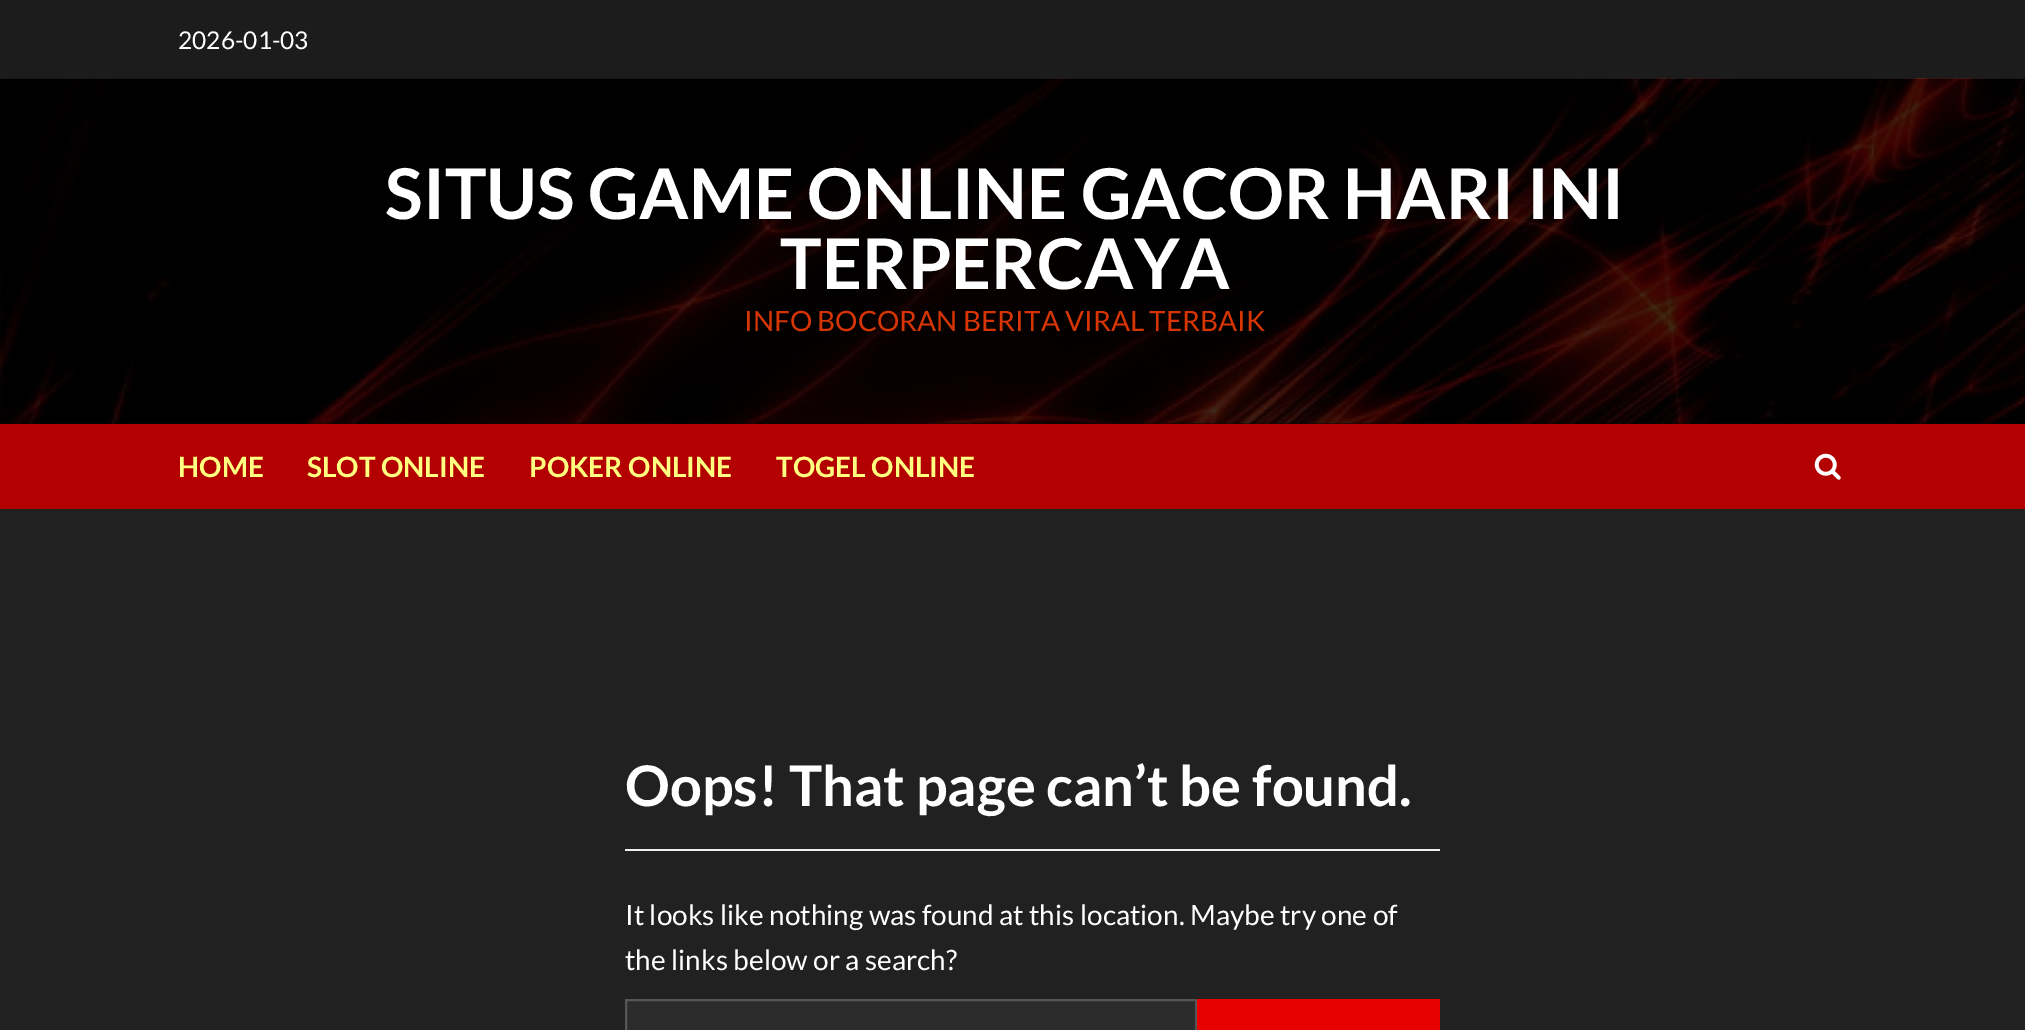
%!PS
<< /PageSize [2025 1030] >> setpagedevice
/picture { 5 dict begin { /h /w /y /x /name } { exch def } forall
  gsave x y translate w h scale
  w h 8 [w 0 0 h 0 0] name (r) file false 3 colorimage grestore end } def
0 1030 translate 1 -1 scale
4 setmiterlimit
0.129 setgray
0 0 2025 1030 rectfill
0.031 setgray
0 423 2025 1 rectfill
0.11 setgray
0 0 2025 79 rectfill
/Lato-Regular [24.5 0 0 -24.5 0 0] selectfont
1 setgray
178 49 moveto (2026-01-03) show
(img1.rgb) 0 78 2025 346 picture
/Lato-Bold [70 0 0 -70 0 0] selectfont
385 219 moveto (SITUS GAME ONLINE GACOR HARI INI) show
780 289 moveto (TERPERCAYA) show
/Lato-Regular [28 0 0 -28 0 0] selectfont
0.847 0.208 0.016 setrgbcolor
744 331 moveto (INFO BOCORAN BERITA VIRAL TERBAIK) show
0.702 0 0 setrgbcolor
0 424 2025 85 rectfill
/Lato-Bold [28 0 0 -28 0 0] selectfont
1 1 0.502 setrgbcolor
178 477 moveto (HOME) show
307 477 moveto (SLOT ONLINE) show
529 477 moveto (POKER ONLINE) show
776 477 moveto (TOGEL ONLINE) show
(img2.rgb) 1814 453 27 27 picture
0.933 setgray
625 849 815 2 rectfill
/Lato-Bold [56 0 0 -56 0 0] selectfont
1 setgray
625 806 moveto (Oops! That page can’t be found.) show
/Lato-Regular [28 0 0 -28 0 0] selectfont
625 925 moveto (It looks like nothing was found at this location. Maybe try one of) show
625 970 moveto (the links below or a search?) show
0.173 setgray
newpath 626 1000 moveto 1196 1000 lineto 1196 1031 lineto 626 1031 lineto closepath gsave fill grestore
0.337 setgray
2 setlinewidth
stroke
0.902 0 0 setrgbcolor
1197 999 243 31 rectfill
showpage
